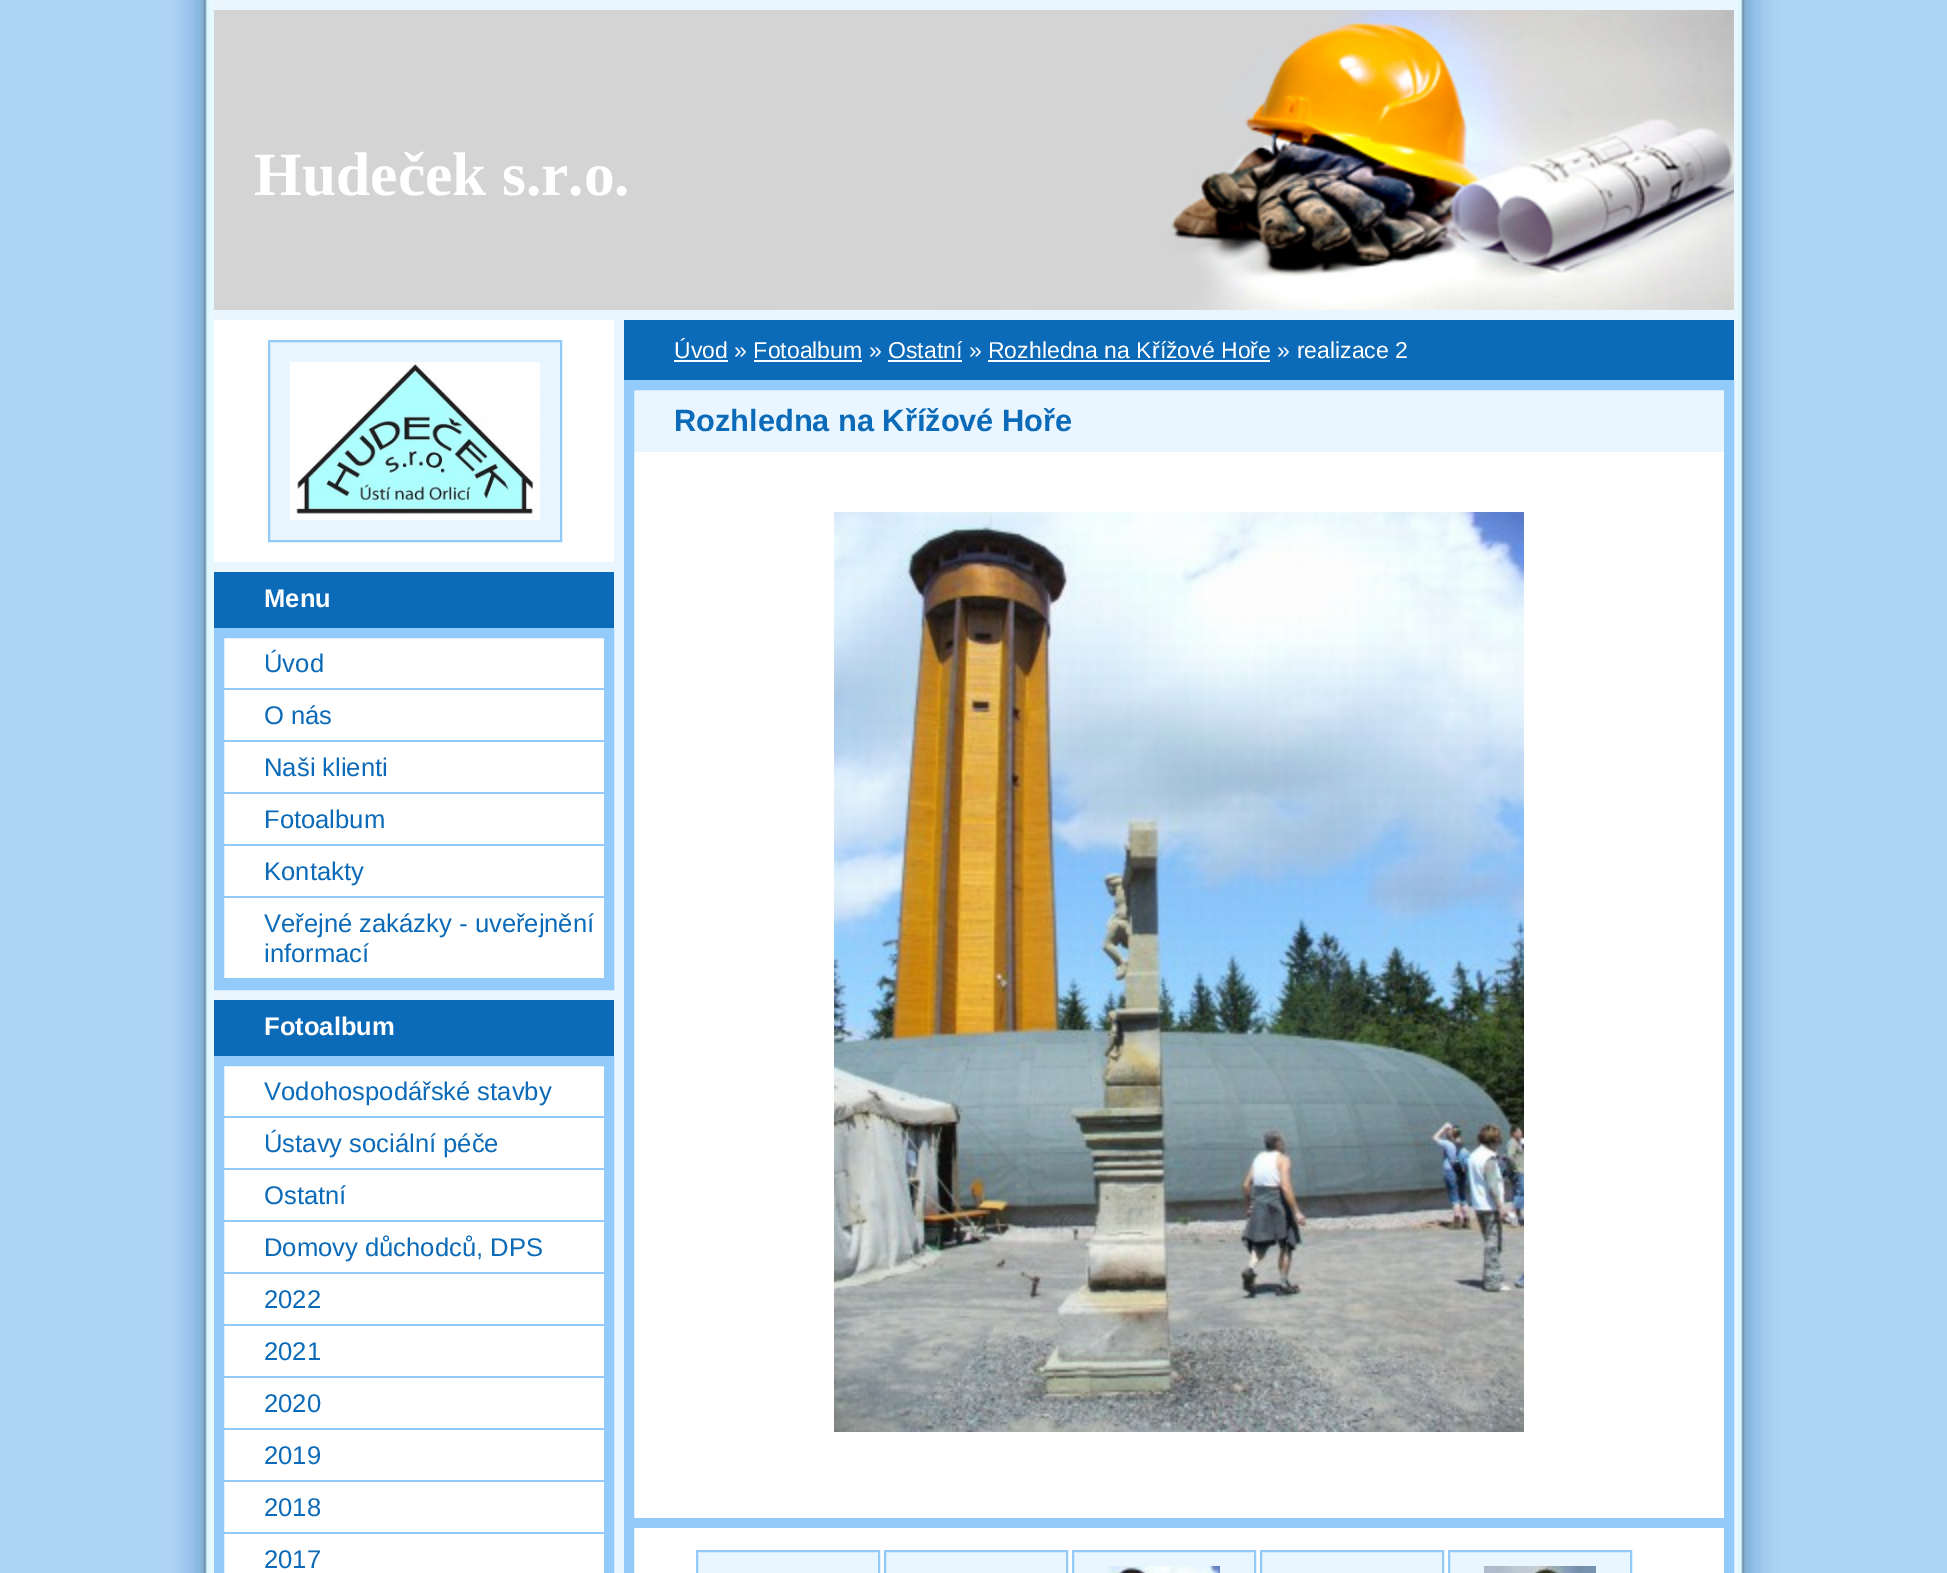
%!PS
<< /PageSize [1947 1573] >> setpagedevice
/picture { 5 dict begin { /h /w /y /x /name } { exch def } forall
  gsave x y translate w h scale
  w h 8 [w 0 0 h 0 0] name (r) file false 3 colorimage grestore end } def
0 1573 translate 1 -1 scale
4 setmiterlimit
0.686 0.835 0.957 setrgbcolor
0 0 1947 1573 rectfill
(img1.rgb) 164 0 1620 1573 picture
(img2.rgb) 214 10 1520 300 picture
/LiberationSerif-Bold [61.5 0 0 -61.5 0 0] selectfont
1 setgray
254 195 moveto (Hudeček s.r.o.) show
0.047 0.42 0.722 setrgbcolor
624 320 1110 60 rectfill
/LiberationSans-Regular [23.05 0 0 -23.05 0 0] selectfont
1 setgray
674 358 moveto (Úvod » Fotoalbum » Ostatní » Rozhledna na Křížové Hoře » realizace 2) show
674 360 54 2 rectfill
754 360 108 2 rectfill
888 360 74 2 rectfill
988 360 282 2 rectfill
634 452 1090 1121 rectfill
0.573 0.796 0.976 setrgbcolor
10 setlinewidth
629 385 1100 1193 rectstroke
/LiberationSans-Bold [30.75 0 0 -30.75 0 0] selectfont
0.047 0.42 0.722 setrgbcolor
674 431 moveto (Rozhledna na Křížové Hoře) show
(img3.rgb) 834 512 690 920 picture
0.573 0.796 0.976 setrgbcolor
634 1518 1090 10 rectfill
0.914 0.965 1 setrgbcolor
newpath 697 1551 moveto 879 1551 lineto 879 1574 lineto 697 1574 lineto closepath gsave fill grestore
0.573 0.796 0.976 setrgbcolor
2 setlinewidth
stroke
0.914 0.965 1 setrgbcolor
newpath 885 1551 moveto 1067 1551 lineto 1067 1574 lineto 885 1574 lineto closepath gsave fill grestore
0.573 0.796 0.976 setrgbcolor
stroke
0.914 0.965 1 setrgbcolor
newpath 1073 1551 moveto 1255 1551 lineto 1255 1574 lineto 1073 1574 lineto closepath gsave fill grestore
0.573 0.796 0.976 setrgbcolor
stroke
(img4.rgb) 1108 1566 112 7 picture
0.914 0.965 1 setrgbcolor
newpath 1261 1551 moveto 1443 1551 lineto 1443 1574 lineto 1261 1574 lineto closepath gsave fill grestore
0.573 0.796 0.976 setrgbcolor
stroke
0.914 0.965 1 setrgbcolor
newpath 1449 1551 moveto 1631 1551 lineto 1631 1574 lineto 1449 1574 lineto closepath gsave fill grestore
0.573 0.796 0.976 setrgbcolor
stroke
(img5.rgb) 1484 1566 112 7 picture
1 setgray
214 320 400 242 rectfill
0.914 0.965 1 setrgbcolor
newpath 269 341 moveto 561 341 lineto 561 541 lineto 269 541 lineto closepath gsave fill grestore
0.573 0.796 0.976 setrgbcolor
stroke
(img6.rgb) 290 362 250 158 picture
0.047 0.42 0.722 setrgbcolor
214 572 400 56 rectfill
/LiberationSans-Bold [25.6 0 0 -25.6 0 0] selectfont
1 setgray
264 607 moveto (Menu) show
224 638 380 340 rectfill
0.573 0.796 0.976 setrgbcolor
10 setlinewidth
219 633 390 352 rectstroke
224 688 380 2 rectfill
/LiberationSans-Regular [25.6 0 0 -25.6 0 0] selectfont
0.047 0.42 0.722 setrgbcolor
264 672 moveto (Úvod) show
0.573 0.796 0.976 setrgbcolor
224 740 380 2 rectfill
0.047 0.42 0.722 setrgbcolor
264 724 moveto (O nás) show
0.573 0.796 0.976 setrgbcolor
224 792 380 2 rectfill
0.047 0.42 0.722 setrgbcolor
264 776 moveto (Naši klienti) show
0.573 0.796 0.976 setrgbcolor
224 844 380 2 rectfill
0.047 0.42 0.722 setrgbcolor
264 828 moveto (Fotoalbum) show
0.573 0.796 0.976 setrgbcolor
224 896 380 2 rectfill
0.047 0.42 0.722 setrgbcolor
264 880 moveto (Kontakty) show
0.573 0.796 0.976 setrgbcolor
224 978 380 2 rectfill
0.047 0.42 0.722 setrgbcolor
264 932 moveto (Veřejné zakázky - uveřejnění) show
264 962 moveto (informací) show
214 1000 400 56 rectfill
/LiberationSans-Bold [25.6 0 0 -25.6 0 0] selectfont
1 setgray
264 1035 moveto (Fotoalbum) show
newpath 219 1061 moveto 609 1061 lineto 609 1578 lineto 219 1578 lineto closepath gsave fill grestore
0.573 0.796 0.976 setrgbcolor
stroke
224 1116 380 2 rectfill
/LiberationSans-Regular [25.6 0 0 -25.6 0 0] selectfont
0.047 0.42 0.722 setrgbcolor
264 1100 moveto (Vodohospodářské stavby) show
0.573 0.796 0.976 setrgbcolor
224 1168 380 2 rectfill
0.047 0.42 0.722 setrgbcolor
264 1152 moveto (Ústavy sociální péče) show
0.573 0.796 0.976 setrgbcolor
224 1220 380 2 rectfill
0.047 0.42 0.722 setrgbcolor
264 1204 moveto (Ostatní) show
0.573 0.796 0.976 setrgbcolor
224 1272 380 2 rectfill
0.047 0.42 0.722 setrgbcolor
264 1256 moveto (Domovy důchodců, DPS) show
0.573 0.796 0.976 setrgbcolor
224 1324 380 2 rectfill
0.047 0.42 0.722 setrgbcolor
264 1308 moveto (2022) show
0.573 0.796 0.976 setrgbcolor
224 1376 380 2 rectfill
0.047 0.42 0.722 setrgbcolor
264 1360 moveto (2021) show
0.573 0.796 0.976 setrgbcolor
224 1428 380 2 rectfill
0.047 0.42 0.722 setrgbcolor
264 1412 moveto (2020) show
0.573 0.796 0.976 setrgbcolor
224 1480 380 2 rectfill
0.047 0.42 0.722 setrgbcolor
264 1464 moveto (2019) show
0.573 0.796 0.976 setrgbcolor
224 1532 380 2 rectfill
0.047 0.42 0.722 setrgbcolor
264 1516 moveto (2018) show
264 1568 moveto (2017) show
showpage
